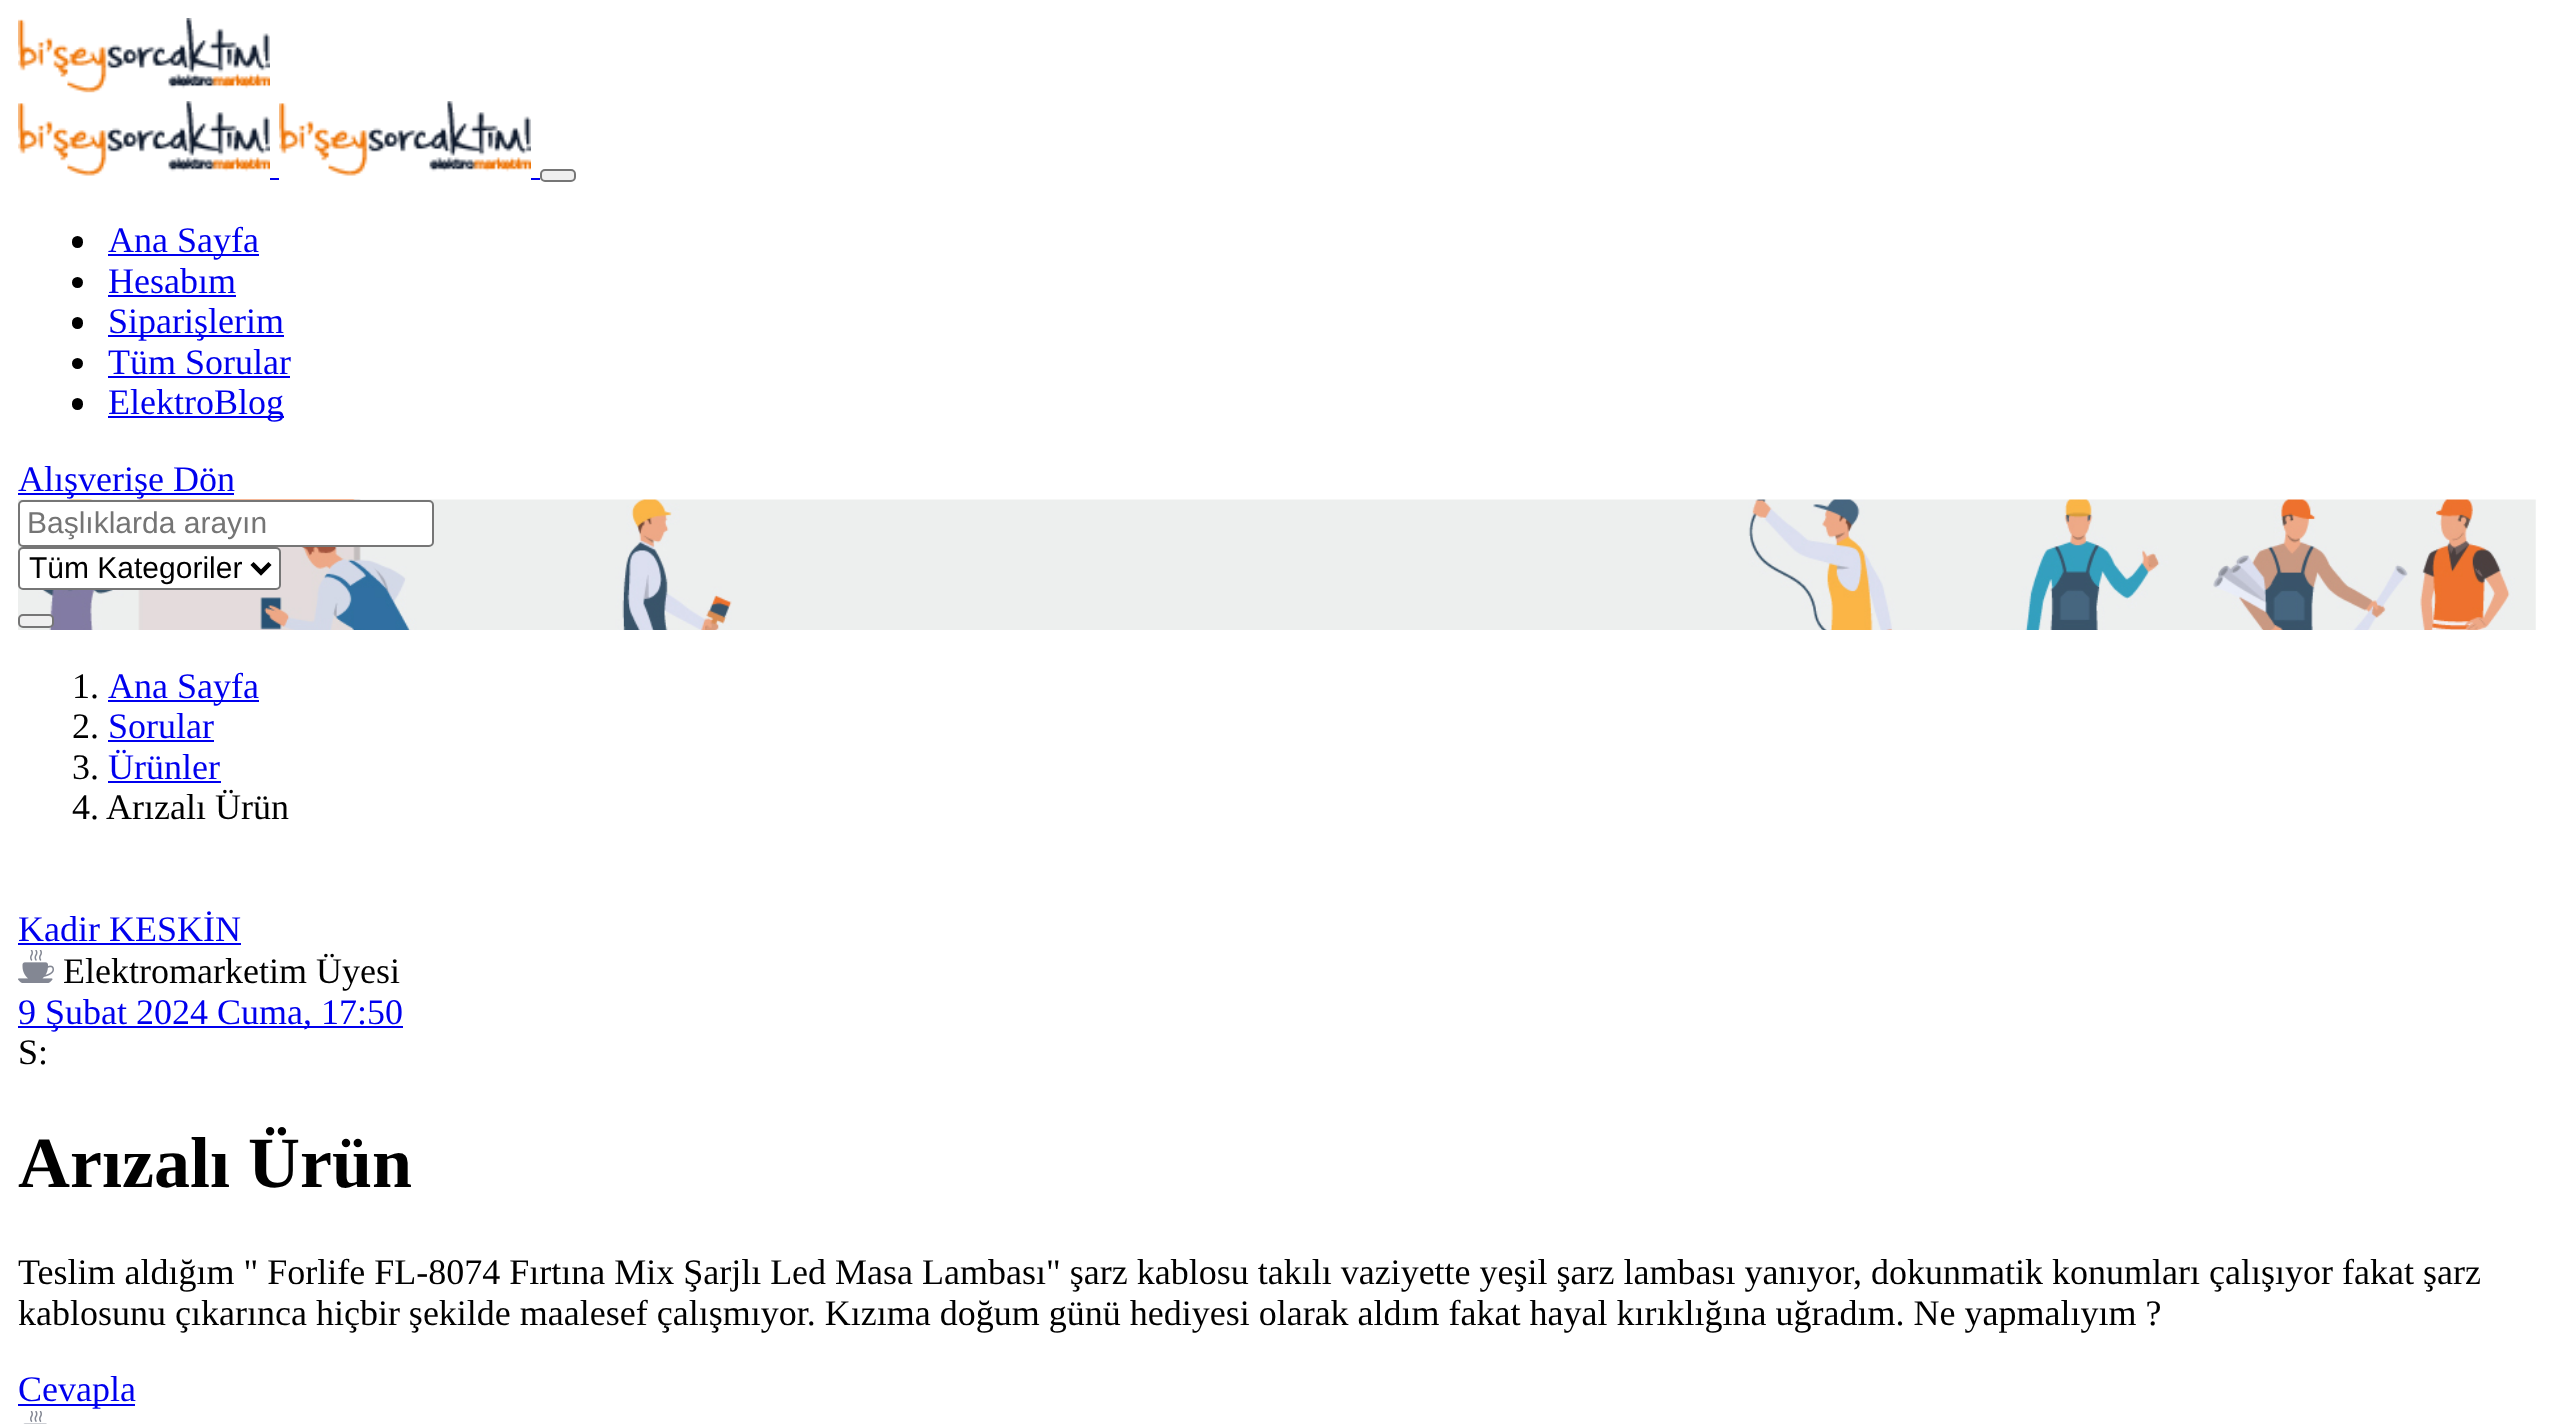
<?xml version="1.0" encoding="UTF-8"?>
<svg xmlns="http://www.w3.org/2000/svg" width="2553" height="1424">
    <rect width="100%" height="100%" fill="#FFFFFF"/>
    <image x="18" y="18" width="252" height="75" href="img_01.png"/>
    <image x="18" y="101" width="252" height="75" href="img_02.png"/>
    <rect x="270" y="178" width="9" height="2" fill="#0000EE"/>
    <image x="279" y="101" width="252" height="75" href="img_03.png"/>
    <rect x="531" y="178" width="9" height="2" fill="#0000EE"/>
    <rect x="541" y="170" width="34" height="11" rx="4" fill="#EFEFEF" stroke="#767676" stroke-width="2"/>
    <rect x="72" y="236" width="11" height="12" rx="5.5" fill="#000000"/>
    <rect x="108" y="254" width="151" height="2" fill="#0000EE"/>
    <text x="108" y="252" font-family="Liberation Serif" font-size="36" fill="#0000EE">Ana Sayfa</text>
    <circle cx="77.5" cy="282.5" r="5.5" fill="#000000"/>
    <text x="108" y="293" font-family="Liberation Serif" font-size="36" fill="#0000EE">Hesabım</text>
    <rect x="108" y="295" width="128" height="2" fill="#0000EE"/>
    <rect x="72" y="317" width="11" height="12" rx="5.5" fill="#000000"/>
    <rect x="108" y="335" width="176" height="2" fill="#0000EE"/>
    <text x="108" y="333" font-family="Liberation Serif" font-size="36" fill="#0000EE">Siparişlerim</text>
    <circle cx="77.5" cy="363.5" r="5.5" fill="#000000"/>
    <text x="108" y="374" font-family="Liberation Serif" font-size="36" fill="#0000EE">Tüm Sorular</text>
    <rect x="108" y="376" width="182" height="2" fill="#0000EE"/>
    <rect x="72" y="398" width="11" height="12" rx="5.5" fill="#000000"/>
    <rect x="108" y="416" width="176" height="2" fill="#0000EE"/>
    <text x="108" y="414" font-family="Liberation Serif" font-size="36" fill="#0000EE">ElektroBlog</text>
    <rect x="18" y="493" width="216" height="2" fill="#0000EE"/>
    <text x="18" y="491" font-family="Liberation Serif" font-size="36" fill="#0000EE">Alışverişe Dön</text>
    <image x="18" y="499" width="2518" height="131" href="img_04.png"/>
    <rect x="19" y="501" width="414" height="45" rx="4" fill="#FFFFFF" stroke="#767676" stroke-width="2"/>
    <text x="27" y="533" font-family="Liberation Sans" font-size="30" fill="#757575">Başlıklarda arayın</text>
    <rect x="19" y="548" width="261" height="41" rx="4" fill="#FFFFFF" stroke="#767676" stroke-width="2"/>
    <path d="M 252 563.5 L 261 572.5 L 270 563.5" fill="none" stroke="#000000" stroke-width="4.5"/>
    <text x="29" y="578" font-family="Liberation Sans" font-size="30" fill="#000000">Tüm Kategoriler</text>
    <rect x="19" y="615" width="34" height="12" rx="4" fill="#EFEFEF" stroke="#767676" stroke-width="2"/>
    <text x="72" y="698" font-family="Liberation Serif" font-size="36" fill="#000000">1.</text>
    <rect x="108" y="700" width="151" height="2" fill="#0000EE"/>
    <text x="108" y="698" font-family="Liberation Serif" font-size="36" fill="#0000EE">Ana Sayfa</text>
    <text x="72" y="738" font-family="Liberation Serif" font-size="36" fill="#000000">2.</text>
    <text x="108" y="738" font-family="Liberation Serif" font-size="36" fill="#0000EE">Sorular</text>
    <rect x="108" y="740" width="106" height="2" fill="#0000EE"/>
    <text x="72" y="779" font-family="Liberation Serif" font-size="36" fill="#000000">3.</text>
    <text x="108" y="779" font-family="Liberation Serif" font-size="36" fill="#0000EE">Ürünler</text>
    <rect x="108" y="781" width="113" height="2" fill="#0000EE"/>
    <text x="72" y="819" font-family="Liberation Serif" font-size="36" fill="#000000">4. Arızalı Ürün</text>
    <text x="18" y="941" font-family="Liberation Serif" font-size="36" fill="#0000EE">Kadir KESKİN</text>
    <rect x="18" y="943" width="223" height="2" fill="#0000EE"/>
    <image x="18" y="950" width="36" height="33" href="img_05.png"/>
    <text x="63" y="983" font-family="Liberation Serif" font-size="36" fill="#000000">Elektromarketim Üyesi</text>
    <rect x="18" y="1026" width="385" height="2" fill="#0000EE"/>
    <text x="18" y="1024" font-family="Liberation Serif" font-size="36" fill="#0000EE">9 Şubat 2024 Cuma, 17:50</text>
    <text x="18" y="1064" font-family="Liberation Serif" font-size="36" fill="#000000">S:</text>
    <text x="18" y="1187" font-family="Liberation Serif" font-size="72" font-weight="700" fill="#000000">Arızalı Ürün</text>
    <text font-family="Liberation Serif" font-size="36" fill="#000000">
        <tspan x="18" y="1284">Teslim aldığım " Forlife FL-8074 Fırtına Mix Şarjlı Led Masa Lambası" şarz kablosu takılı vaziyette yeşil şarz lambası yanıyor, dokunmatik konumları çalışıyor fakat şarz</tspan>
        <tspan x="18" y="1325">kablosunu çıkarınca hiçbir şekilde maalesef çalışmıyor. Kızıma doğum günü hediyesi olarak aldım fakat hayal kırıklığına uğradım. Ne yapmalıyım ?</tspan>
    </text>
    <rect x="18" y="1404" width="117" height="2" fill="#0000EE"/>
    <text x="18" y="1401" font-family="Liberation Serif" font-size="36" fill="#0000EE">Cevapla</text>
    <image x="23" y="1411" width="24" height="13" href="img_06.png"/>
</svg>
